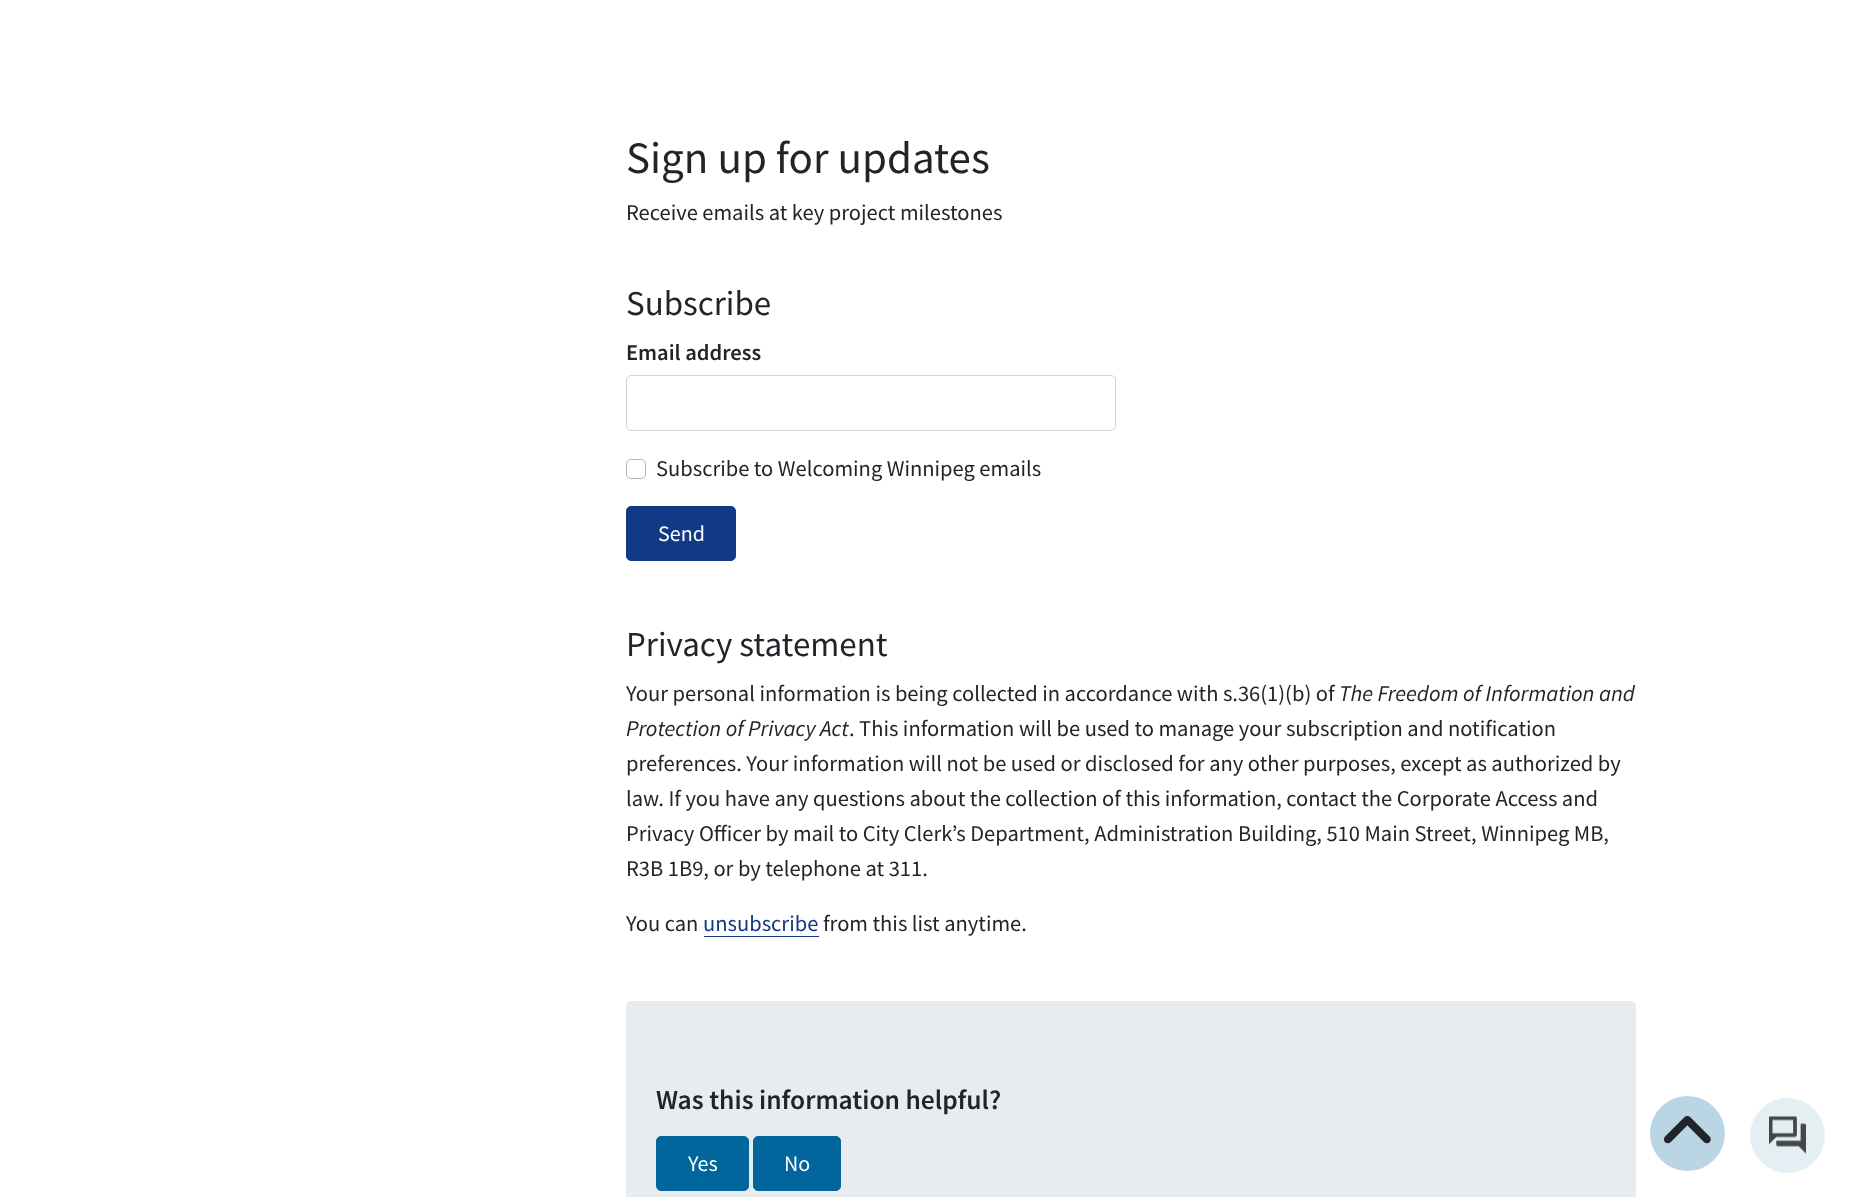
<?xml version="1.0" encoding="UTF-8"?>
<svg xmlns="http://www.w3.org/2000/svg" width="1862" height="1197">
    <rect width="100%" height="100%" fill="#FFFFFF"/>
    <text x="626" y="173" font-family="Source Sans Pro" font-size="45" fill="#212529">Sign up for updates</text>
    <text x="626" y="220" font-family="Source Sans Pro" font-size="22.5" fill="#212529">Receive emails at key project milestones</text>
    <text x="626" y="315" font-family="Source Sans Pro" font-size="35" fill="#212529">Subscribe</text>
    <text x="626" y="360" font-family="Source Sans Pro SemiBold" font-size="22.5" font-weight="600" fill="#212529">Email address</text>
    <rect x="626.5" y="375.5" width="489" height="55" rx="4.5" fill="none" stroke="#CED4DA"/>
    <rect x="626.5" y="459.5" width="19" height="19" rx="4.5" fill="none" stroke="#ADB5BD"/>
    <text x="656" y="476" font-family="Source Sans Pro" font-size="22.5" fill="#212529">Subscribe to Welcoming Winnipeg emails</text>
    <rect x="626.5" y="506.5" width="109" height="54" rx="4.5" fill="#123985" stroke="#123985"/>
    <text x="658" y="541" font-family="Source Sans Pro" font-size="22" fill="#FFFFFF">Send</text>
    <text x="626" y="656" font-family="Source Sans Pro" font-size="35" fill="#212529">Privacy statement</text>
    <text x="626" y="701" font-family="Source Sans Pro" font-size="22.5" fill="#212529">Your personal information is being collected in accordance with s.36(1)(b) of</text>
    <text x="1339" y="701" font-family="Source Sans Pro" font-size="22.5" font-style="italic" fill="#212529">The Freedom of Information and</text>
    <text x="626" y="736" font-family="Source Sans Pro" font-size="22.5" font-style="italic" fill="#212529">Protection of Privacy Act</text>
    <text x="849" y="736" font-family="Source Sans Pro" font-size="22.5" fill="#212529">. This information will be used to manage your subscription and notification</text>
    <text font-family="Source Sans Pro" font-size="22.5" fill="#212529">
        <tspan x="626" y="771">preferences. Your information will not be used or disclosed for any other purposes, except as authorized by</tspan>
        <tspan x="626" y="806">law. If you have any questions about the collection of this information, contact the Corporate Access and</tspan>
        <tspan x="626" y="841">Privacy Officer by mail to City Clerk’s Department, Administration Building, 510 Main Street, Winnipeg MB,</tspan>
        <tspan x="626" y="876">R3B 1B9, or by telephone at 311.</tspan>
    </text>
    <text x="626" y="931" font-family="Source Sans Pro" font-size="22.5" fill="#212529">You can</text>
    <text x="703" y="931" font-family="Source Sans Pro" font-size="22.5" fill="#123985">unsubscribe</text>
    <rect x="704" y="936" width="115" height="1" fill="#123985"/>
    <text x="823" y="931" font-family="Source Sans Pro" font-size="22.5" fill="#212529">from this list anytime.</text>
    <rect x="626" y="1001" width="1010" height="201" rx="5" fill="#E9ECEF"/>
    <text x="656" y="1109" font-family="Source Sans Pro SemiBold" font-size="27.5" font-weight="600" fill="#212529">Was this information helpful?</text>
    <rect x="656.5" y="1136.5" width="92" height="54" rx="4.5" fill="#00669B" stroke="#00669B"/>
    <text x="688" y="1171" font-family="Source Sans Pro" font-size="22" fill="#FFFFFF">Yes</text>
    <rect x="753.5" y="1136.5" width="87" height="54" rx="4.5" fill="#00669B" stroke="#00669B"/>
    <text x="784" y="1171" font-family="Source Sans Pro" font-size="22" fill="#FFFFFF">No</text>
    <circle cx="1687.5" cy="1133.5" r="37.5" fill="#BAD6E4"/>
    <image x="1663" y="1116" width="48" height="28" href="img_01.png"/>
    <circle cx="1787.5" cy="1135.5" r="37.5" fill="#E4EFF4"/>
    <image x="1769" y="1116" width="37" height="38" href="img_02.png"/>
</svg>
